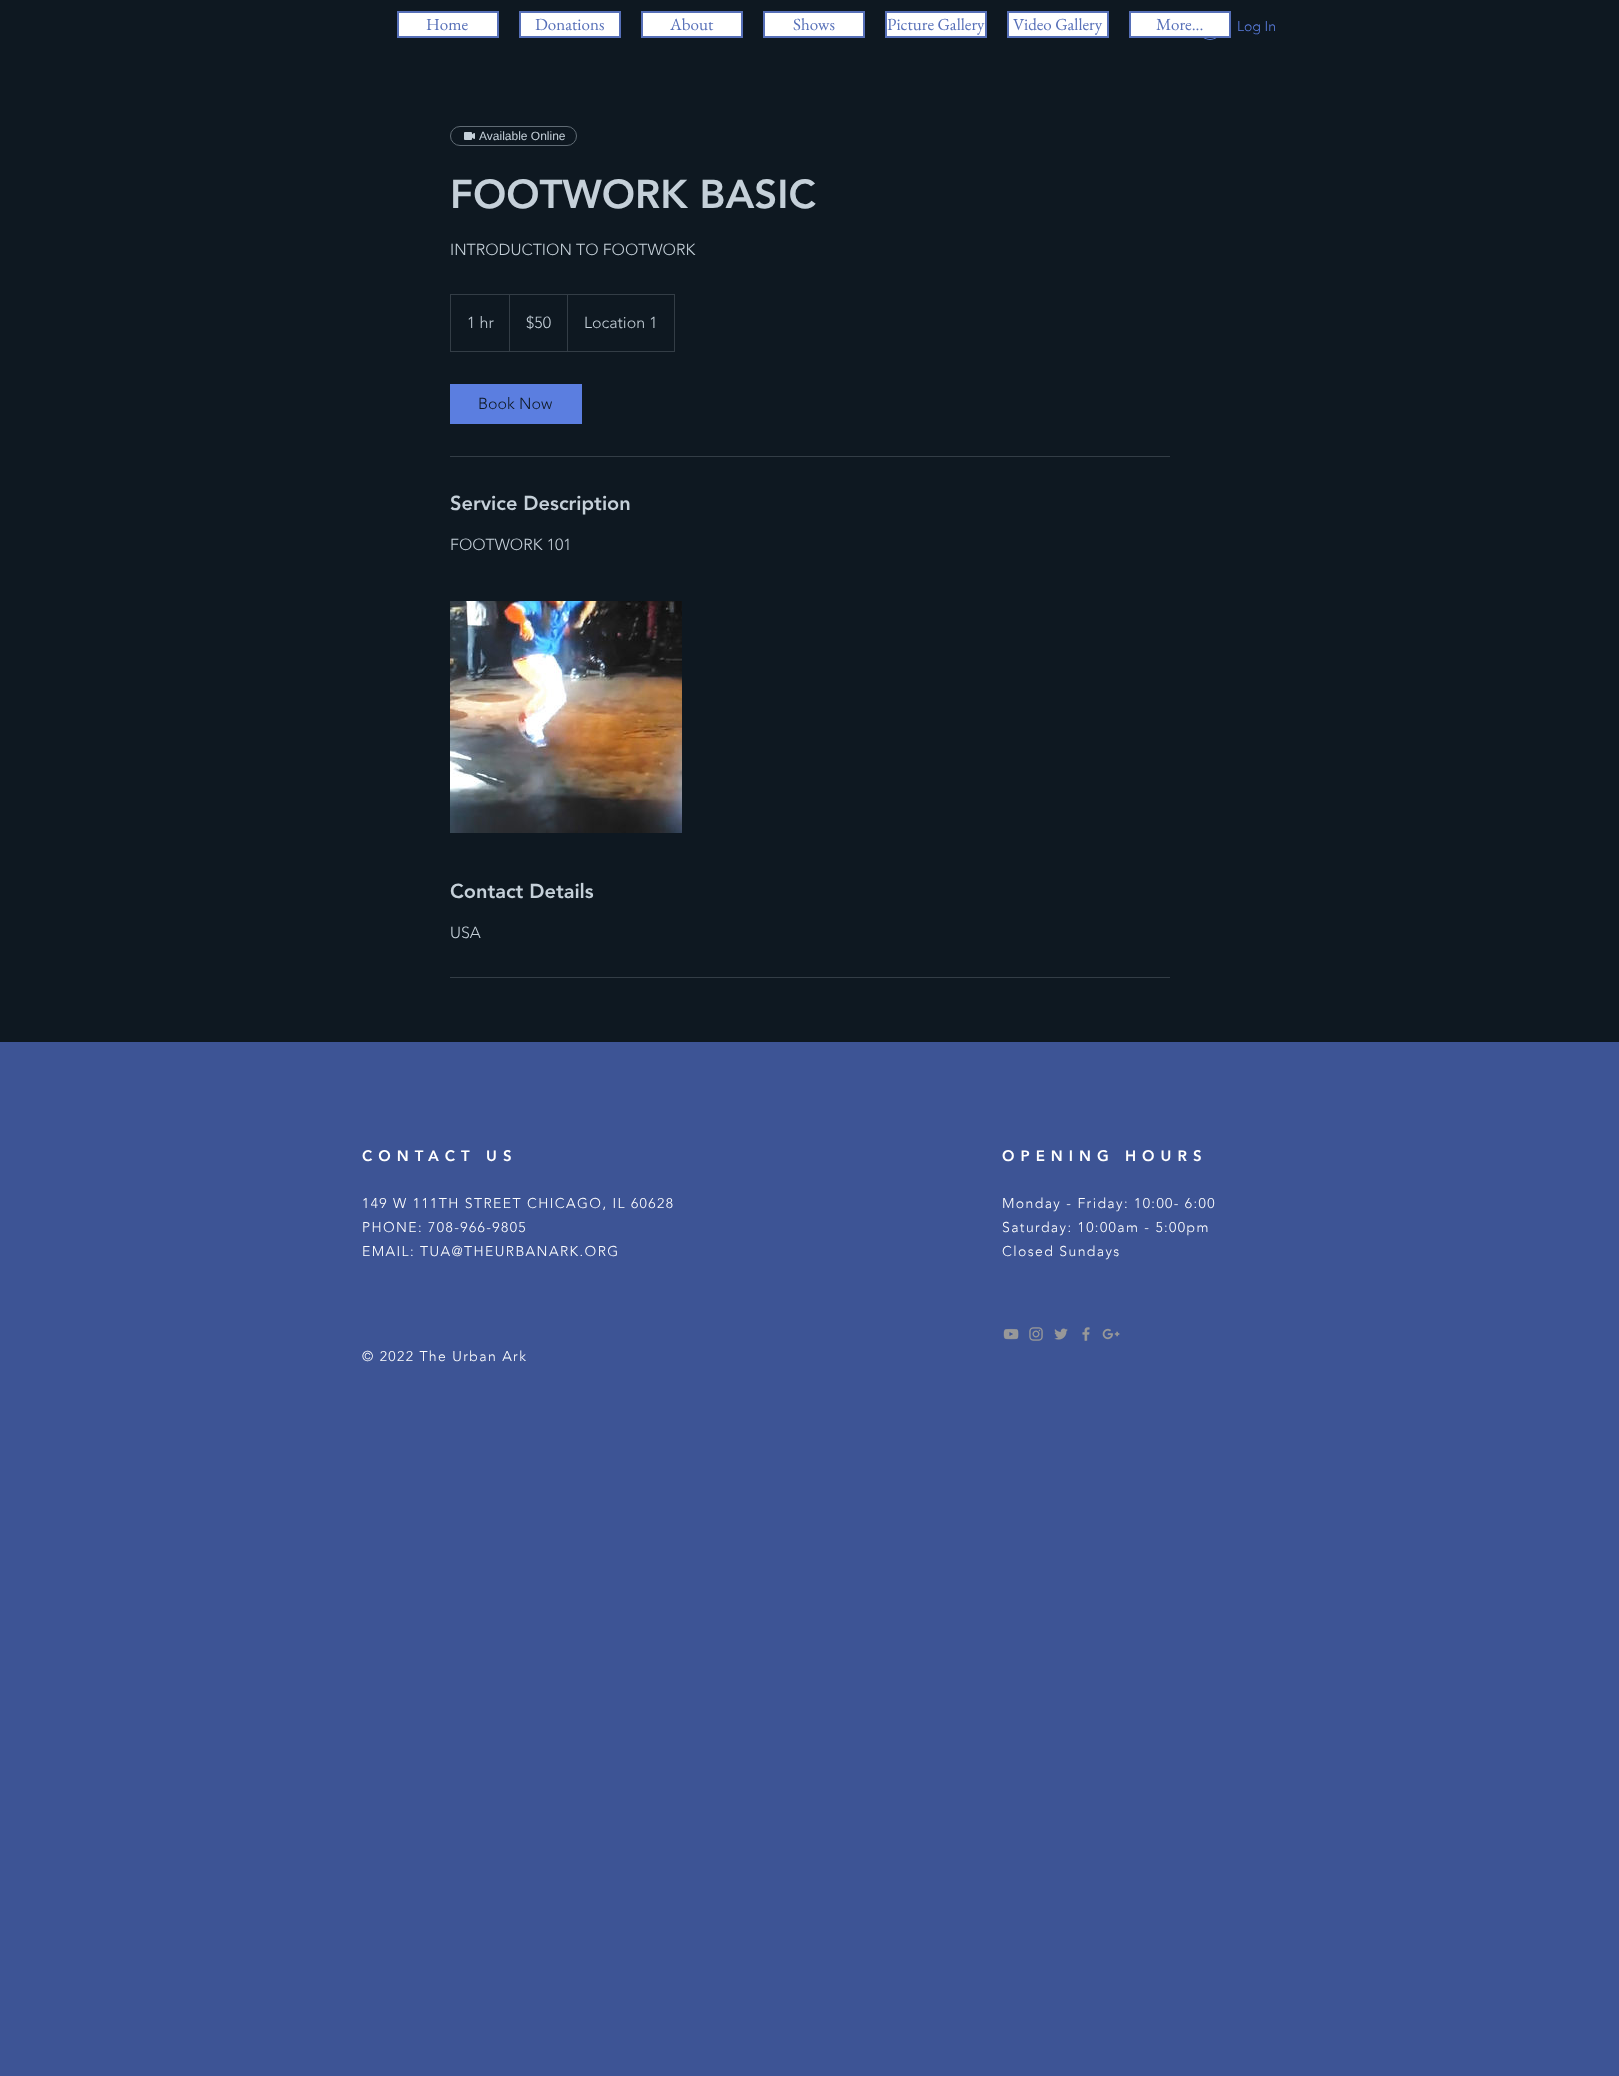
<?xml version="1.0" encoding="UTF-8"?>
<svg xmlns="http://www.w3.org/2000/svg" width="1619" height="2076">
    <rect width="100%" height="100%" fill="#3D5495"/>
    <rect x="0" y="0" width="1619" height="1042" fill="#0E1821"/>
    <rect x="398" y="12" width="100" height="25" fill="#FFFFFF" stroke="#566FB8" stroke-width="2"/>
    <text x="426" y="30" font-family="EB Garamond" font-size="17" fill="#566FB8">Home</text>
    <rect x="520" y="12" width="100" height="25" fill="#FFFFFF" stroke="#566FB8" stroke-width="2"/>
    <text x="535" y="30" font-family="EB Garamond" font-size="17" fill="#566FB8">Donations</text>
    <rect x="642" y="12" width="100" height="25" fill="#FFFFFF" stroke="#566FB8" stroke-width="2"/>
    <text x="670" y="30" font-family="EB Garamond" font-size="17" fill="#566FB8">About</text>
    <rect x="764" y="12" width="100" height="25" fill="#FFFFFF" stroke="#566FB8" stroke-width="2"/>
    <text x="793" y="30" font-family="EB Garamond" font-size="17" fill="#566FB8">Shows</text>
    <rect x="886" y="12" width="100" height="25" fill="#FFFFFF" stroke="#566FB8" stroke-width="2"/>
    <text x="887" y="30" font-family="EB Garamond" font-size="17" fill="#566FB8">Picture Gallery</text>
    <rect x="1008" y="12" width="100" height="25" fill="#FFFFFF" stroke="#566FB8" stroke-width="2"/>
    <text x="1013" y="30" font-family="EB Garamond" font-size="17" fill="#566FB8">Video Gallery</text>
    <rect x="1130" y="12" width="100" height="25" fill="#FFFFFF" stroke="#566FB8" stroke-width="2"/>
    <text x="1156" y="30" font-family="EB Garamond" font-size="17" fill="#566FB8">More...</text>
    <text x="1237" y="31" font-family="'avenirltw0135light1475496'" font-size="14" font-weight="300" fill="#5B7EE0">Log In</text>
    <image x="1203" y="38" width="14" height="2" href="img_01.png"/>
    <rect x="450.5" y="126.5" width="126" height="19" rx="9.5" fill="none" stroke="#606B74"/>
    <image x="464" y="132" width="11" height="8" href="img_02.png"/>
    <text x="479" y="140" font-family="Liberation Sans" font-size="12" fill="#C5D0D9">Available Online</text>
    <text x="450" y="208" font-family="'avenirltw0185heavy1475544'" font-size="40" font-weight="900" fill="#C5D0D9">FOOTWORK BASIC</text>
    <text x="450" y="255" font-family="'avenirltw0135light1475496'" font-size="16" font-weight="300" fill="#C5D0D9">INTRODUCTION TO FOOTWORK</text>
    <rect x="450.5" y="294.5" width="224" height="57" fill="none" stroke="#333D46"/>
    <text x="467" y="328" font-family="'avenirltw0135light1475496'" font-size="16" font-weight="300" fill="#C5D0D9">1 hr</text>
    <path d="M 509 351 V 294 L 510 295 V 351 Z" fill="#333D46"/>
    <text x="526" y="328" font-family="'avenirltw0135light1475496'" font-size="16" font-weight="300" fill="#C5D0D9">$50</text>
    <path d="M 567 351 V 294 L 568 295 V 351 Z" fill="#333D46"/>
    <text x="584" y="328" font-family="'avenirltw0135light1475496'" font-size="16" font-weight="300" fill="#C5D0D9">Location 1</text>
    <rect x="450" y="384" width="132" height="40" fill="#5B7EE0"/>
    <text x="478" y="409" font-family="'avenirltw0135light1475496'" font-size="16" font-weight="300" fill="#0E1821">Book Now</text>
    <rect x="450" y="456" width="720" height="1" fill="#333D46"/>
    <text x="450" y="510" font-family="'avenirltw0185heavy1475544'" font-size="20" font-weight="900" fill="#C5D0D9">Service Description</text>
    <text x="450" y="550" font-family="'avenirltw0135light1475496'" font-size="16" font-weight="300" fill="#C5D0D9">FOOTWORK 101</text>
    <image x="450" y="601" width="232" height="232" href="img_03.png"/>
    <text x="450" y="898" font-family="'avenirltw0185heavy1475544'" font-size="20" font-weight="900" fill="#C5D0D9">Contact Details</text>
    <text x="450" y="938" font-family="'avenirltw0135light1475496'" font-size="16" font-weight="300" fill="#C5D0D9">USA</text>
    <rect x="450" y="977" width="720" height="1" fill="#333D46"/>
    <text x="362" y="1161" font-family="'avenirltw0185heavy1475544'" font-size="15" font-weight="900" letter-spacing="6" fill="#FFFFFF">CONTACT US</text>
    <text x="1002" y="1161" font-family="'avenirltw0185heavy1475544'" font-size="15" font-weight="900" letter-spacing="6" fill="#FFFFFF">OPENING HOURS</text>
    <text font-family="'avenirltw0135light1475496'" font-size="14" font-weight="300" letter-spacing="1.4" fill="#FFFFFF">
        <tspan x="362" y="1208">149 W 111TH STREET CHICAGO, IL 60628</tspan>
        <tspan x="362" y="1232">PHONE: 708-966-9805</tspan>
        <tspan x="362" y="1256">EMAIL: TUA@THEURBANARK.ORG</tspan>
    </text>
    <text font-family="'avenirltw0135light1475496'" font-size="14" font-weight="300" letter-spacing="1.4" fill="#FFFFFF">
        <tspan x="1002" y="1208">Monday - Friday: 10:00- 6:00</tspan>
        <tspan x="1002" y="1232">Saturday: 10:00am - 5:00pm</tspan>
        <tspan x="1002" y="1256">Closed Sundays</tspan>
    </text>
    <image x="1003" y="1328" width="16" height="12" href="img_04.png"/>
    <image x="1029" y="1327" width="14" height="14" href="img_05.png"/>
    <image x="1054" y="1328" width="14" height="12" href="img_06.png"/>
    <image x="1082" y="1327" width="8" height="14" href="img_07.png"/>
    <image x="1102" y="1328" width="18" height="12" href="img_08.png"/>
    <text x="362" y="1361" font-family="'avenirltw0135light1475496'" font-size="14" font-weight="300" letter-spacing="1.4" fill="#FFFFFF">© 2022 The Urban Ark</text>
</svg>
